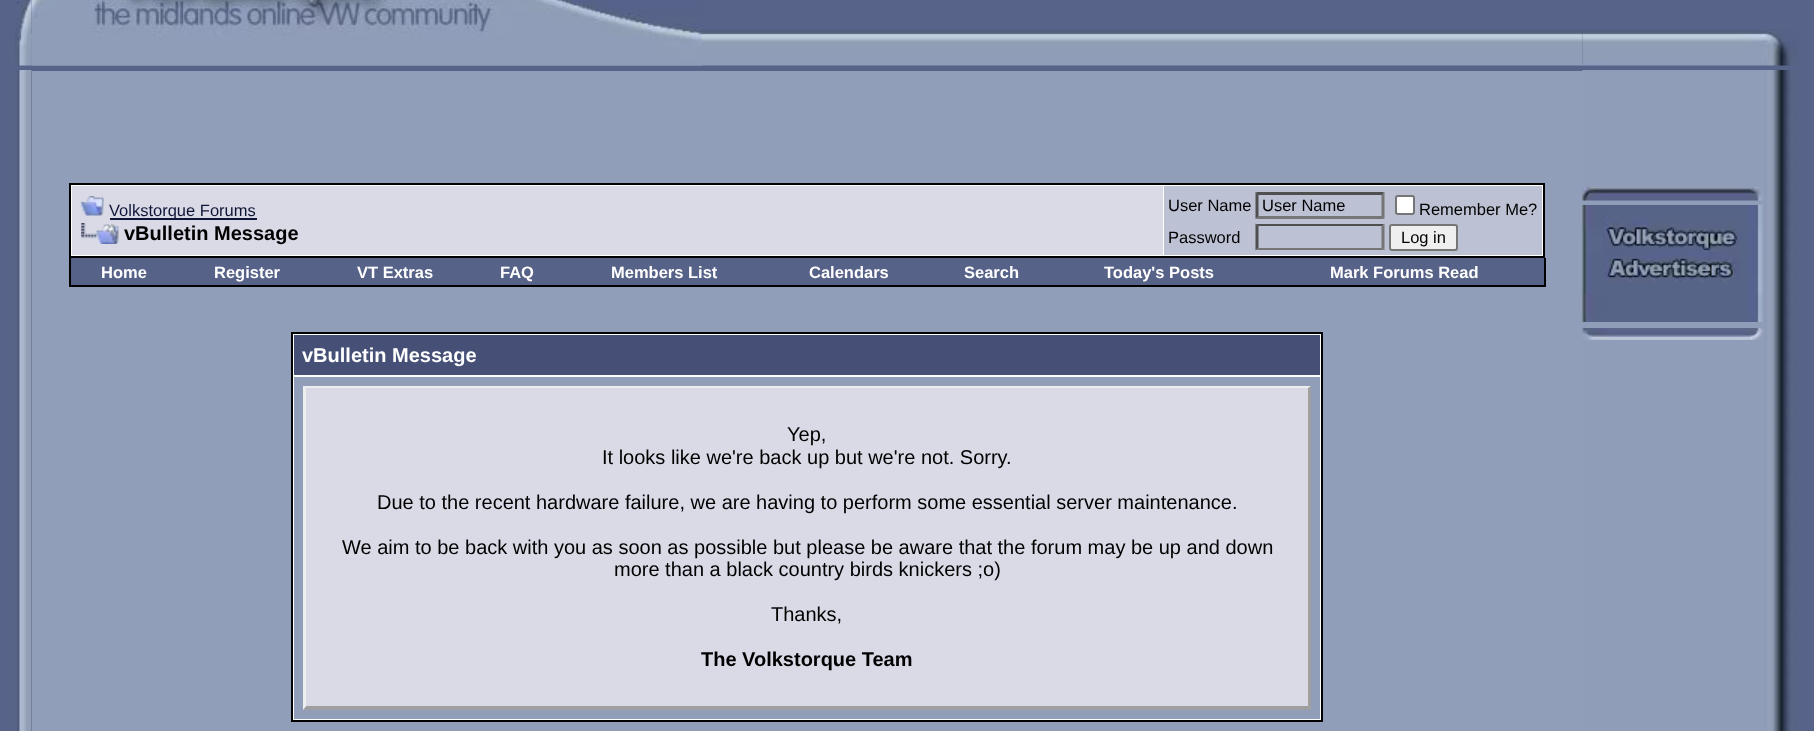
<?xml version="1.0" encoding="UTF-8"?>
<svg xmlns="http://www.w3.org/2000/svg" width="1814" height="731">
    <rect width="100%" height="100%" fill="#576389"/>
    <image x="31" y="29" width="671" height="37" href="img_02.png"/>
    <image x="15" y="0" width="17" height="66" href="img_01.png"/>
    <image x="31" y="0" width="671" height="66" href="img_03.png"/>
    <image x="702" y="29" width="881" height="37" href="img_04.png"/>
    <image x="1582" y="29" width="216" height="37" href="img_05.png"/>
    <image x="15" y="70" width="17" height="90" href="img_06.png"/>
    <rect x="32" y="71" width="1551" height="660" fill="#919EBA"/>
    <image x="1582" y="70" width="215" height="90" href="img_07.png"/>
    <image x="15" y="160" width="17" height="571" href="img_08.png"/>
    <rect x="70" y="184" width="1474" height="73" fill="#FFFFFF" stroke="#000000" stroke-width="2"/>
    <rect x="72" y="186" width="1091" height="69" fill="#D9DAE6"/>
    <image x="81" y="196" width="23" height="20" href="img_09.png"/>
    <rect x="110" y="218" width="147" height="2" fill="#0E1536"/>
    <text x="109" y="216" font-family="Liberation Sans" font-size="16.5" fill="#0E1536">Volkstorque Forums</text>
    <image x="81" y="223" width="38" height="21" href="img_10.png"/>
    <text x="124" y="240" font-family="Liberation Sans" font-size="20" font-weight="700" fill="#000000">vBulletin Message</text>
    <rect x="1164" y="186" width="378" height="69" fill="#BCC1D3"/>
    <text x="1168" y="211" font-family="Liberation Sans" font-size="16.5" fill="#000000">User Name</text>
    <path d="M 1256 192 H 1384 L 1382 195 H 1258 Z" fill="#4F4F4F"/>
    <path d="M 1384.5 192 V 219 L 1381.5 216 V 195 Z" fill="#767676"/>
    <path d="M 1384 219 H 1256 L 1258 216 H 1382 Z" fill="#767676"/>
    <path d="M 1255.5 219 V 192 L 1258.5 195 V 216 Z" fill="#4F4F4F"/>
    <text x="1262" y="211" font-family="Liberation Sans" font-size="16.5" fill="#000000">User Name</text>
    <rect x="1396" y="196" width="18" height="18" rx="2" fill="#FFFFFF" stroke="#767676" stroke-width="2"/>
    <text x="1419" y="215" font-family="Liberation Sans" font-size="16.5" fill="#000000">Remember Me?</text>
    <text x="1168" y="243" font-family="Liberation Sans" font-size="16.5" fill="#000000">Password</text>
    <path d="M 1256 224 H 1384 L 1382 226 H 1258 Z" fill="#4F4F4F"/>
    <path d="M 1384.5 223.5 V 250.5 L 1381.5 247.5 V 226.5 Z" fill="#767676"/>
    <path d="M 1384 250 H 1256 L 1258 248 H 1382 Z" fill="#767676"/>
    <path d="M 1255.5 250.5 V 223.5 L 1258.5 226.5 V 247.5 Z" fill="#4F4F4F"/>
    <rect x="1390" y="225" width="67" height="25" rx="2" fill="#EFEFEF" stroke="#767676" stroke-width="2"/>
    <text x="1401" y="243" font-family="Liberation Sans" font-size="16.5" fill="#000000">Log in</text>
    <rect x="1544" y="258" width="2" height="29" fill="#000000"/>
    <rect x="69" y="285" width="1476" height="2" fill="#000000"/>
    <rect x="69" y="258" width="2" height="29" fill="#000000"/>
    <rect x="71" y="258" width="1473" height="27" fill="#576288"/>
    <text x="101" y="278" font-family="Liberation Sans" font-size="16.5" font-weight="700" fill="#FFFFFF">Home</text>
    <text x="214" y="278" font-family="Liberation Sans" font-size="16.5" font-weight="700" fill="#FFFFFF">Register</text>
    <text x="357" y="278" font-family="Liberation Sans" font-size="16.5" font-weight="700" fill="#FFFFFF">VT Extras</text>
    <text x="500" y="278" font-family="Liberation Sans" font-size="16.5" font-weight="700" fill="#FFFFFF">FAQ</text>
    <text x="611" y="278" font-family="Liberation Sans" font-size="16.5" font-weight="700" fill="#FFFFFF">Members List</text>
    <text x="809" y="278" font-family="Liberation Sans" font-size="16.5" font-weight="700" fill="#FFFFFF">Calendars</text>
    <text x="964" y="278" font-family="Liberation Sans" font-size="16.5" font-weight="700" fill="#FFFFFF">Search</text>
    <text x="1104" y="278" font-family="Liberation Sans" font-size="16.5" font-weight="700" fill="#FFFFFF">Today's Posts</text>
    <text x="1330" y="278" font-family="Liberation Sans" font-size="16.5" font-weight="700" fill="#FFFFFF">Mark Forums Read</text>
    <rect x="292" y="333" width="1030" height="388" fill="#FFFFFF" stroke="#000000" stroke-width="2"/>
    <rect x="294" y="335" width="1026" height="40" fill="#465076"/>
    <text x="302" y="362" font-family="Liberation Sans" font-size="20" font-weight="700" fill="#FFFFFF">vBulletin Message</text>
    <rect x="294" y="377" width="1026" height="342" fill="#919EBA"/>
    <rect x="303" y="386" width="1008" height="324" fill="#D9DAE6"/>
    <path d="M 303 386 H 1311 L 1308 388 H 306 Z" fill="#EEEEEE"/>
    <path d="M 1311 386 V 710 L 1308 706 V 388 Z" fill="#9F9F9F"/>
    <path d="M 1311 710 H 303 L 306 706 H 1308 Z" fill="#9F9F9F"/>
    <path d="M 303 710 V 386 L 306 388 V 706 Z" fill="#EEEEEE"/>
    <text x="787" y="441" font-family="Liberation Sans" font-size="20" fill="#000000">Yep,</text>
    <text x="602" y="464" font-family="Liberation Sans" font-size="20" fill="#000000">It looks like we're back up but we're not. Sorry.</text>
    <text x="377" y="509" font-family="Liberation Sans" font-size="20" fill="#000000">Due to the recent hardware failure, we are having to perform some essential server maintenance.</text>
    <text x="342" y="554" font-family="Liberation Sans" font-size="20" fill="#000000">We aim to be back with you as soon as possible but please be aware that the forum may be up and down</text>
    <text x="614" y="576" font-family="Liberation Sans" font-size="20" fill="#000000">more than a black country birds knickers ;o)</text>
    <text x="771" y="621" font-family="Liberation Sans" font-size="20" fill="#000000">Thanks,</text>
    <text x="701" y="666" font-family="Liberation Sans" font-size="20" font-weight="700" fill="#000000">The Volkstorque Team</text>
    <image x="1583" y="160" width="214" height="571" href="img_11.png"/>
    <image x="1582" y="187" width="181" height="14" href="img_12.png"/>
    <image x="1582" y="205" width="181" height="117" href="img_13.png"/>
    <image x="1603" y="218" width="139" height="65" href="img_14.png"/>
    <image x="1582" y="328" width="181" height="12" href="img_15.png"/>
</svg>
